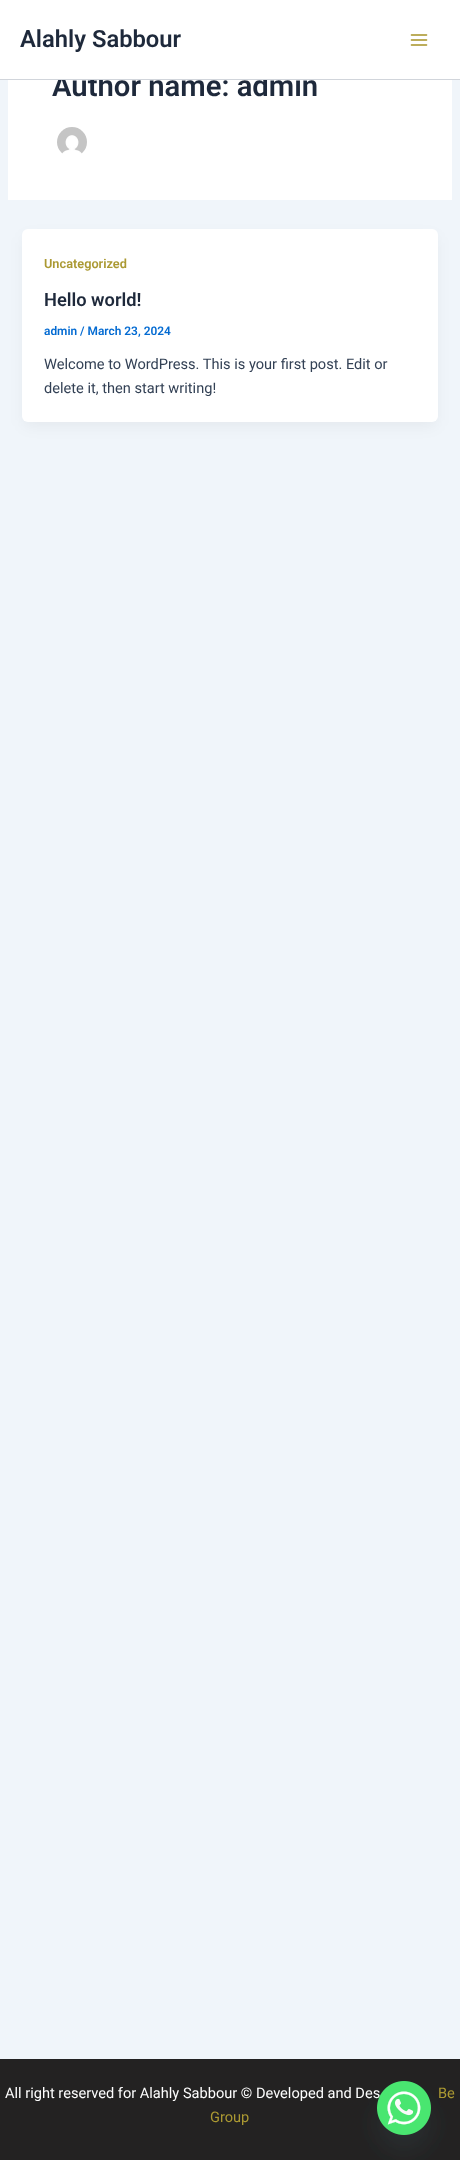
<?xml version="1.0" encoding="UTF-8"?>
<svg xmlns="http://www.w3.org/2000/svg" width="460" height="2160">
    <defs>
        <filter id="blur1" x="-50%" y="-200%" width="200%" height="500%"><feGaussianBlur stdDeviation="7.5"/></filter>
        <filter id="blur2" x="-50%" y="-200%" width="200%" height="500%"><feGaussianBlur stdDeviation="12"/></filter>
    </defs>
    <rect width="100%" height="100%" fill="#F0F5FA"/>
    <rect x="8" y="80" width="444" height="120" fill="#FFFFFF"/>
    <text x="52" y="96" font-family="Roboto" font-size="29.25" font-weight="600" fill="#1E293B">Author name: admin</text>
    <rect x="0" y="0" width="460" height="79" fill="#FFFFFF"/>
    <rect x="0" y="79" width="460" height="1" fill="#D1D5DB"/>
    <text x="20" y="47" font-family="Roboto" font-size="23.75" font-weight="600" fill="#1E293B">Alahly Sabbour</text>
    <image x="410" y="34" width="18" height="12" href="img_01.png"/>
    <image x="57" y="127" width="30" height="27" href="img_02.png"/>
    <rect x="24" y="237" width="412" height="189" rx="4" fill="#101828" fill-opacity="0.05" filter="url(#blur1)"/>
    <rect x="22" y="229" width="416" height="193" rx="6" fill="#FFFFFF"/>
    <text x="44" y="268" font-family="Roboto" font-size="12.75" font-weight="600" fill="#AB9932">Uncategorized</text>
    <text x="44" y="306" font-family="Roboto" font-size="18.25" font-weight="600" fill="#1E293B">Hello world!</text>
    <text x="44" y="335" font-family="Roboto" font-size="11.9" font-weight="600" fill="#046BD2">admin / March 23, 2024</text>
    <text font-family="Roboto" font-size="14.6" fill="#334155">
        <tspan x="44" y="369">Welcome to WordPress. This is your first post. Edit or</tspan>
        <tspan x="44" y="393">delete it, then start writing!</tspan>
    </text>
    <rect x="0" y="2059" width="460" height="101" fill="#232222"/>
    <text x="5" y="2098" font-family="Roboto" font-size="14.6" fill="#FEFEFE">All right reserved for Alahly Sabbour © Developed and Des</text>
    <text x="438" y="2098" font-family="Roboto" font-size="14.6" fill="#AB9932">Be</text>
    <text x="210" y="2122" font-family="Roboto" font-size="14.6" fill="#AB9932">Group</text>
    <rect x="377" y="2097" width="54" height="54" rx="27" fill="#49687E" fill-opacity="0.16" filter="url(#blur2)"/>
    <image x="377" y="2081" width="54" height="54" href="img_03.png"/>
</svg>
